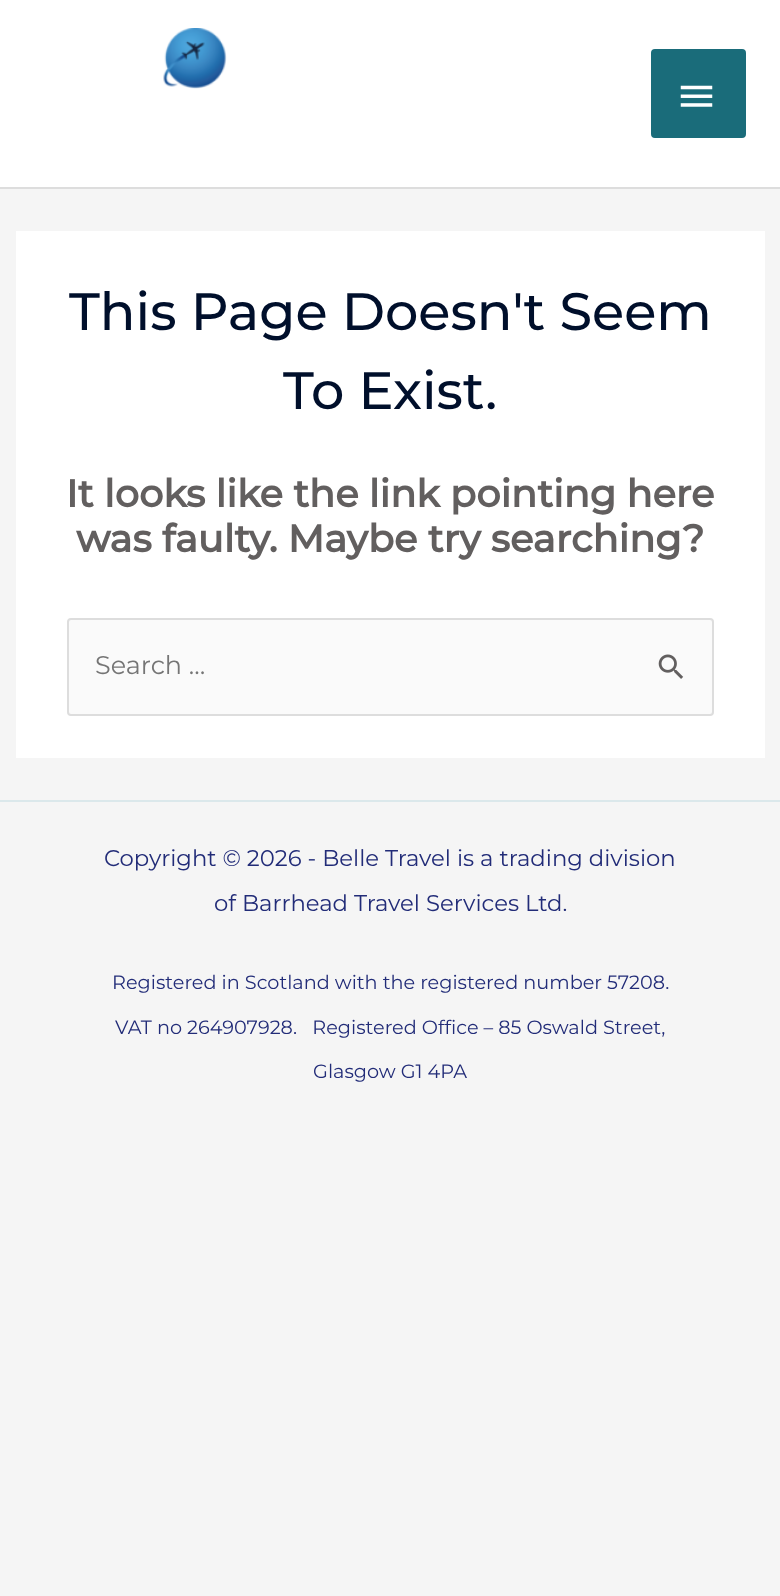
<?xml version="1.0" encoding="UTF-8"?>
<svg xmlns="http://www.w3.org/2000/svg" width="780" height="1596">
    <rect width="100%" height="100%" fill="#F5F5F5"/>
    <rect x="0" y="0" width="780" height="187" fill="#FFFFFF"/>
    <rect x="0" y="187" width="780" height="2" fill="#DDDDDD"/>
    <image x="163" y="28" width="64" height="61" href="img_01.png"/>
    <rect x="653" y="51" width="91" height="85" rx="2" fill="#1A6C7A" stroke="#1A6C7A" stroke-width="4"/>
    <image x="680" y="85" width="33" height="22" href="img_02.png"/>
    <rect x="16" y="231" width="749" height="527" fill="#FFFFFF"/>
    <text x="69" y="330" font-family="Montserrat" font-size="52.5" font-weight="500" fill="#000F2B">This Page Doesn't Seem</text>
    <text x="283" y="409" font-family="Montserrat" font-size="52.5" font-weight="500" fill="#000F2B">To Exist.</text>
    <text x="66" y="507" font-family="Montserrat" font-size="38.25" font-weight="700" fill="#625F5F">It looks like the link pointing here</text>
    <text x="76" y="552" font-family="Montserrat" font-size="38.25" font-weight="700" fill="#625F5F">was faulty. Maybe try searching?</text>
    <rect x="68" y="619" width="645" height="96" rx="3" fill="#FAFAFA" stroke="#DDDDDD" stroke-width="2"/>
    <text x="95" y="674" font-family="Montserrat" font-size="25.5" fill="#757575">Search …</text>
    <image x="658" y="654" width="26" height="25" href="img_03.png"/>
    <rect x="0" y="800" width="780" height="2" fill="#DBE8EB"/>
    <text x="104" y="866" font-family="Montserrat" font-size="22.75" fill="#222C78">Copyright © 2026 - Belle Travel is a trading division</text>
    <text x="214" y="911" font-family="Montserrat" font-size="22.75" fill="#222C78">of Barrhead Travel Services Ltd.</text>
    <text x="112" y="989" font-family="Montserrat" font-size="19.25" fill="#222C78">Registered in Scotland with the registered number 57208.</text>
    <text x="115" y="1034" font-family="Montserrat" font-size="19.25" fill="#222C78" xml:space="preserve">VAT no 264907928.   Registered Office – 85 Oswald Street,</text>
    <text x="313" y="1078" font-family="Montserrat" font-size="19.25" fill="#222C78">Glasgow G1 4PA</text>
</svg>
